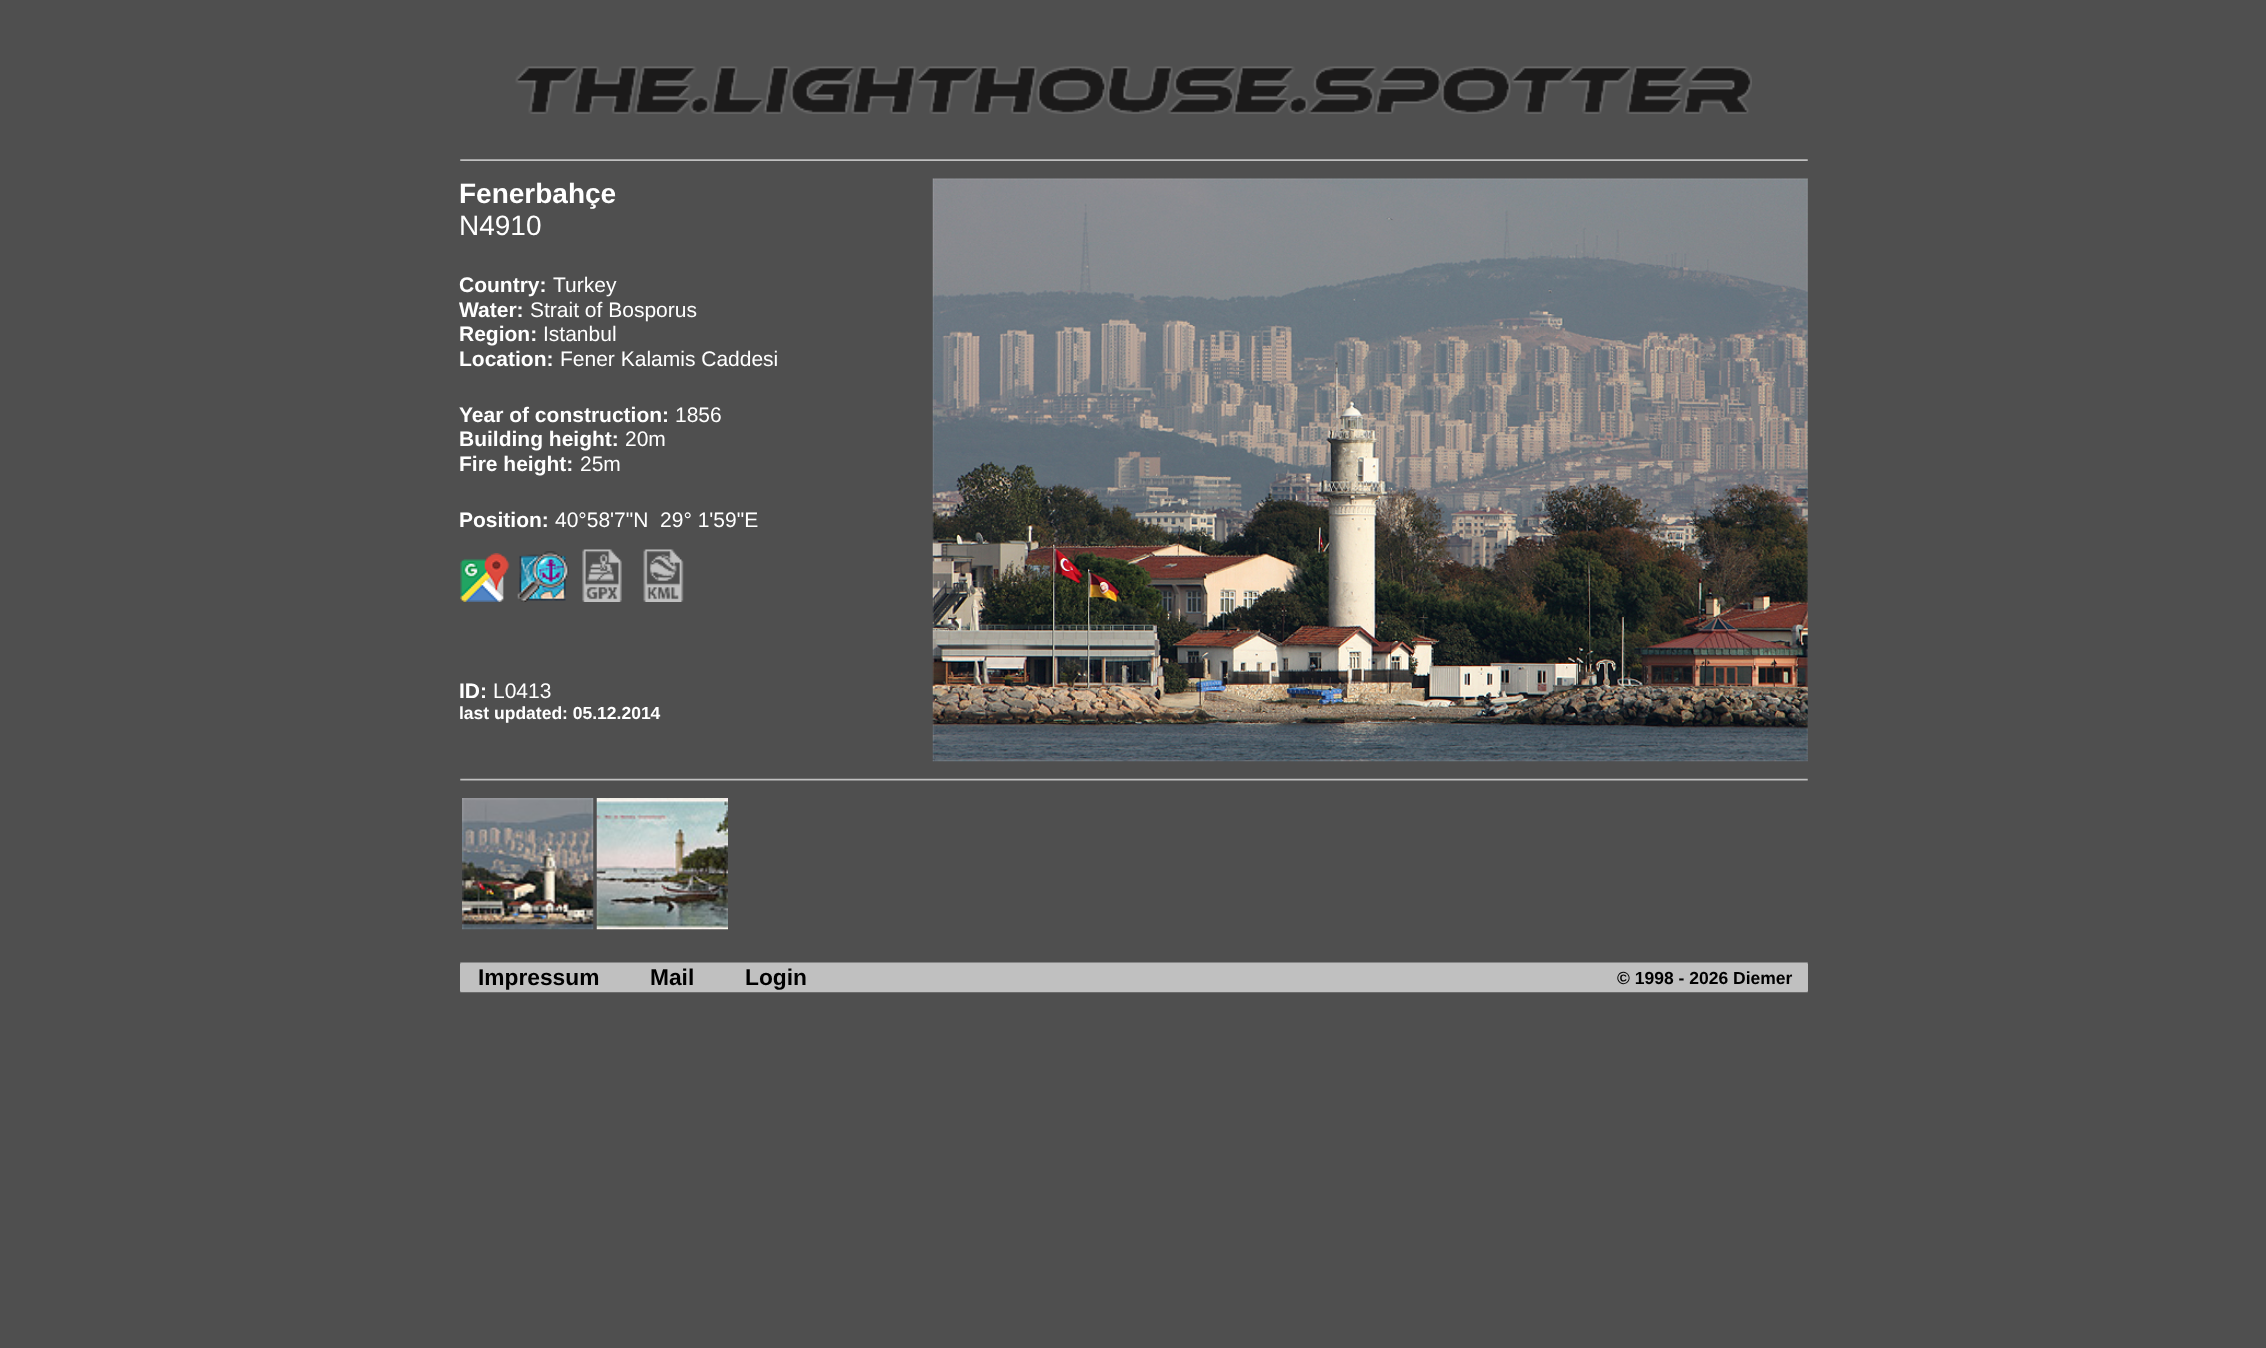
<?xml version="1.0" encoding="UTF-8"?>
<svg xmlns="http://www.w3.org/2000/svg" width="2266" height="1348">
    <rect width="100%" height="100%" fill="#4F4F4F"/>
    <image x="515" y="66" width="1237" height="48" href="img_01.png"/>
    <image x="460" y="159" width="1348" height="2" href="img_02.png"/>
    <text x="459" y="203" font-family="Liberation Sans" font-size="28" font-weight="700" fill="#FFFFFF">Fenerbahçe</text>
    <text x="459" y="235" font-family="Liberation Sans" font-size="28" fill="#FFFFFF">N4910</text>
    <text x="459" y="292" font-family="Liberation Sans" font-size="21" font-weight="700" fill="#FFFFFF">Country:</text>
    <text x="553" y="292" font-family="Liberation Sans" font-size="21" fill="#FFFFFF">Turkey</text>
    <text x="459" y="317" font-family="Liberation Sans" font-size="21" font-weight="700" fill="#FFFFFF">Water:</text>
    <text x="530" y="317" font-family="Liberation Sans" font-size="21" fill="#FFFFFF">Strait of Bosporus</text>
    <text x="459" y="341" font-family="Liberation Sans" font-size="21" font-weight="700" fill="#FFFFFF">Region:</text>
    <text x="543" y="341" font-family="Liberation Sans" font-size="21" fill="#FFFFFF">Istanbul</text>
    <text x="459" y="366" font-family="Liberation Sans" font-size="21" font-weight="700" fill="#FFFFFF">Location:</text>
    <text x="560" y="366" font-family="Liberation Sans" font-size="21" fill="#FFFFFF">Fener Kalamis Caddesi</text>
    <text x="459" y="422" font-family="Liberation Sans" font-size="21" font-weight="700" fill="#FFFFFF">Year of construction:</text>
    <text x="675" y="422" font-family="Liberation Sans" font-size="21" fill="#FFFFFF">1856</text>
    <text x="459" y="446" font-family="Liberation Sans" font-size="21" font-weight="700" fill="#FFFFFF">Building height:</text>
    <text x="625" y="446" font-family="Liberation Sans" font-size="21" fill="#FFFFFF">20m</text>
    <text x="459" y="471" font-family="Liberation Sans" font-size="21" font-weight="700" fill="#FFFFFF">Fire height:</text>
    <text x="580" y="471" font-family="Liberation Sans" font-size="21" fill="#FFFFFF">25m</text>
    <text x="459" y="527" font-family="Liberation Sans" font-size="21" font-weight="700" fill="#FFFFFF">Position:</text>
    <text x="555" y="527" font-family="Liberation Sans" font-size="21" fill="#FFFFFF" xml:space="preserve">40°58'7"N  29° 1'59"E</text>
    <image x="460" y="553" width="50" height="49" href="img_03.png"/>
    <image x="517" y="551" width="52" height="51" href="img_04.png"/>
    <image x="582" y="549" width="40" height="53" href="img_05.png"/>
    <image x="643" y="549" width="41" height="53" href="img_06.png"/>
    <text x="459" y="698" font-family="Liberation Sans" font-size="21" font-weight="700" fill="#FFFFFF">ID:</text>
    <text x="493" y="698" font-family="Liberation Sans" font-size="21" fill="#FFFFFF">L0413</text>
    <text x="459" y="719" font-family="Liberation Sans" font-size="17.5" font-weight="700" fill="#FFFFFF">last updated: 05.12.2014</text>
    <image x="932" y="178" width="876" height="584" href="img_07.png"/>
    <image x="460" y="778" width="1348" height="3" href="img_08.png"/>
    <image x="462" y="798" width="132" height="132" href="img_09.png"/>
    <image x="596" y="798" width="132" height="132" href="img_10.png"/>
    <image x="460" y="962" width="1348" height="2" href="img_11.png"/>
    <rect x="460" y="964" width="1348" height="27" fill="#C0C0C0"/>
    <text x="478" y="985" font-family="Liberation Sans" font-size="22.75" font-weight="700" fill="#000000">Impressum</text>
    <text x="650" y="985" font-family="Liberation Sans" font-size="22.75" font-weight="700" fill="#000000">Mail</text>
    <text x="745" y="985" font-family="Liberation Sans" font-size="22.75" font-weight="700" fill="#000000">Login</text>
    <text x="1617" y="984" font-family="Liberation Sans" font-size="17.5" font-weight="700" fill="#000000">© 1998 - 2026 Diemer</text>
    <image x="460" y="991" width="1348" height="2" href="img_12.png"/>
</svg>
